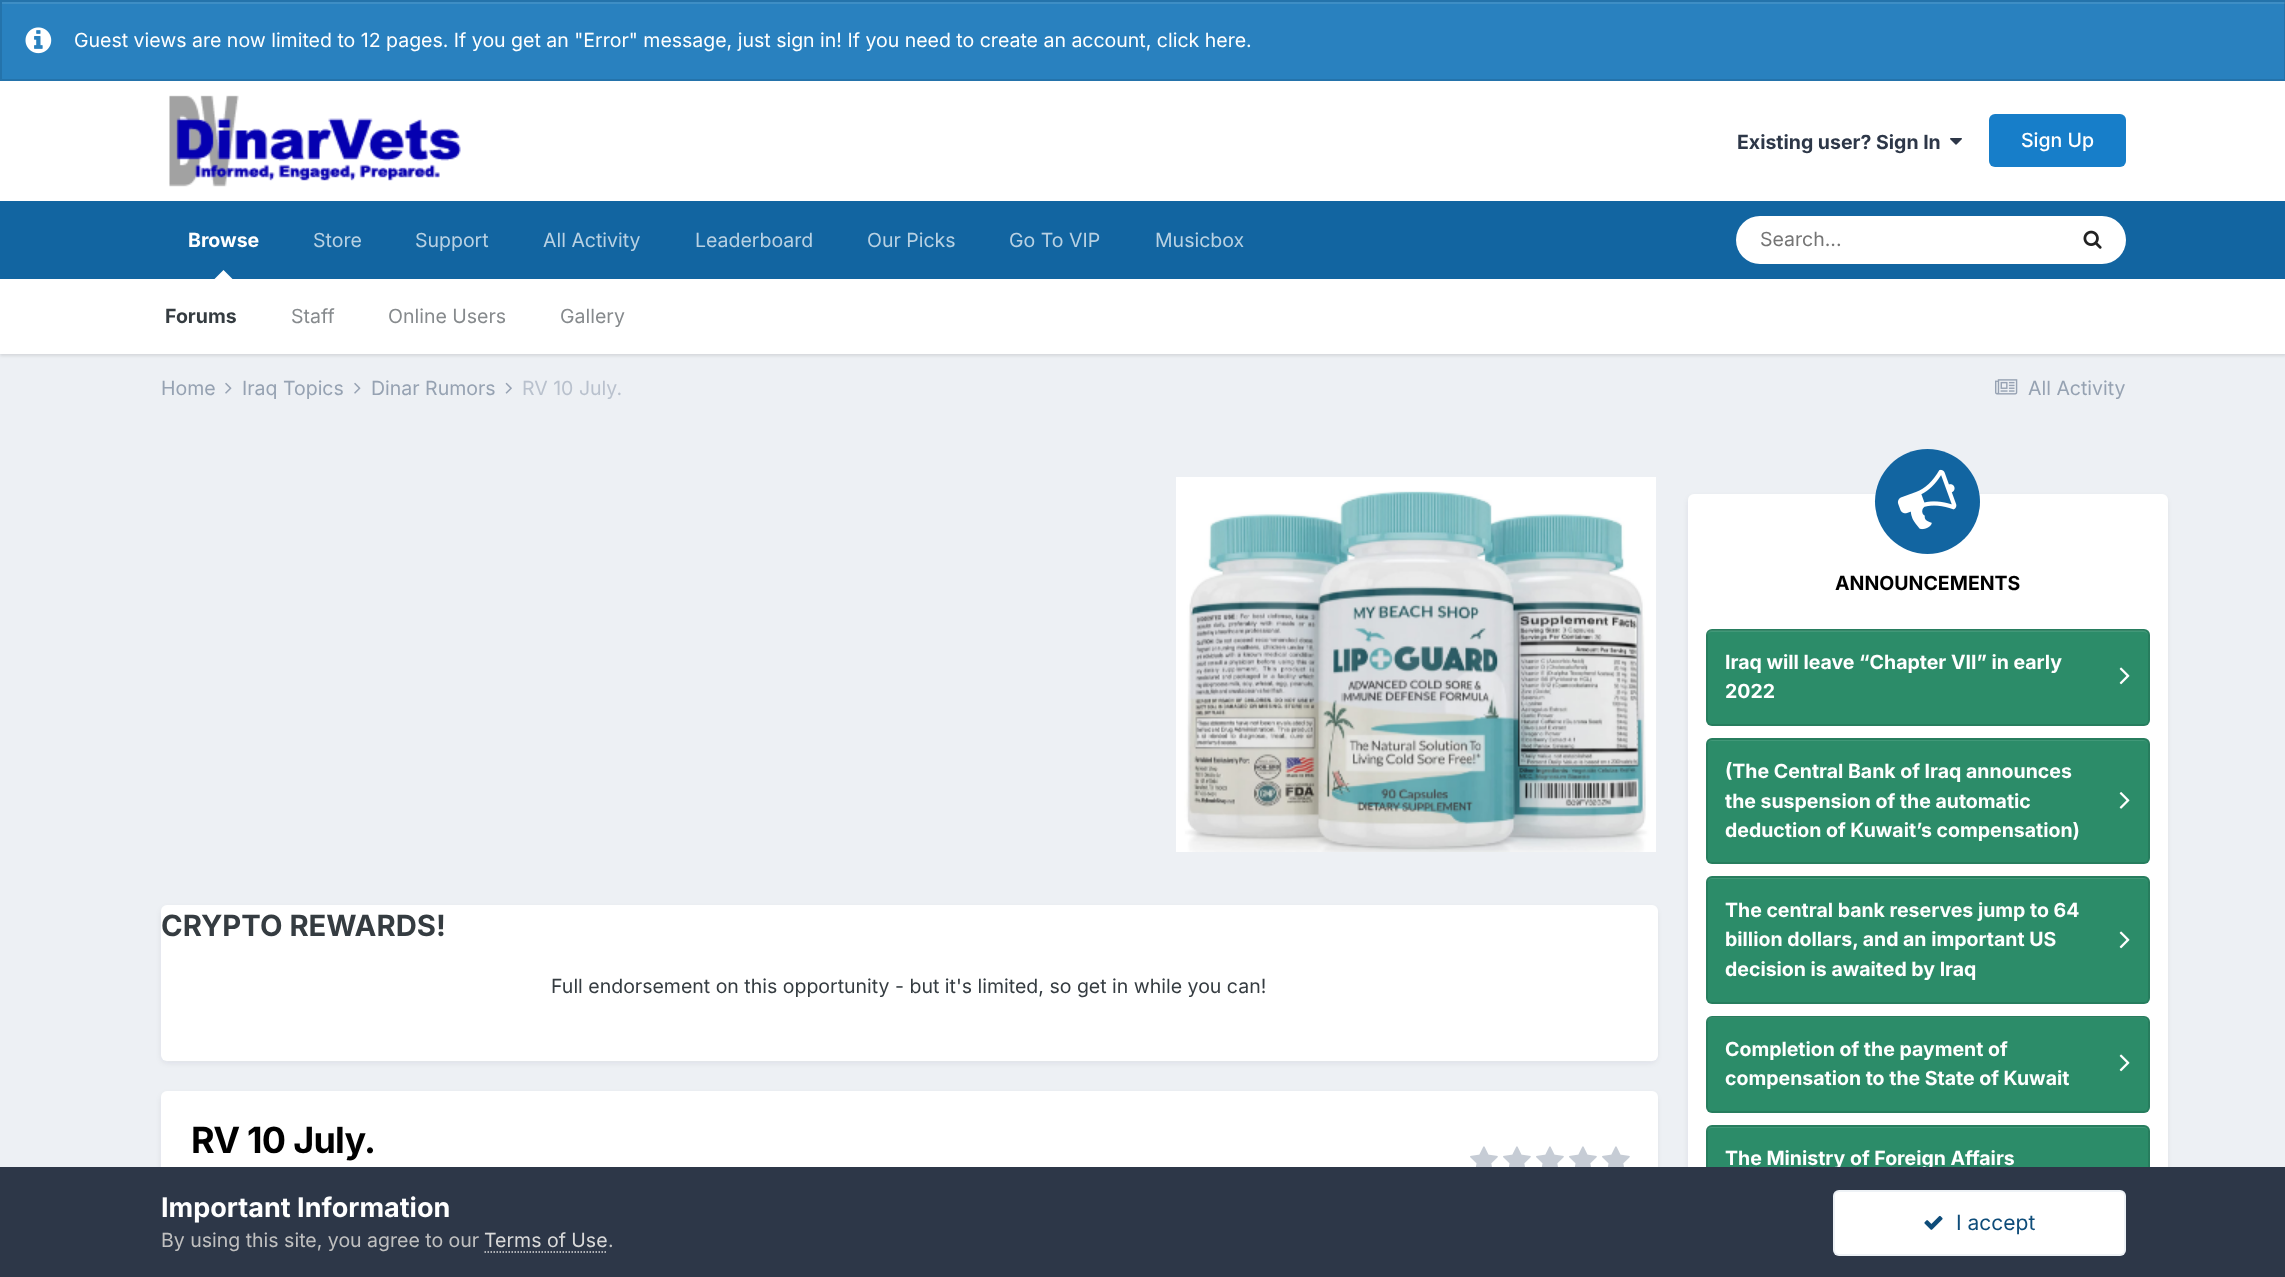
<?xml version="1.0" encoding="UTF-8"?>
<svg xmlns="http://www.w3.org/2000/svg" width="2285" height="1277">
    <defs>
        <filter id="blur1" x="-50%" y="-200%" width="200%" height="500%"><feGaussianBlur stdDeviation="1.5"/></filter>
        <filter id="blur2" x="-50%" y="-200%" width="200%" height="500%"><feGaussianBlur stdDeviation="3"/></filter>
    </defs>
    <rect width="100%" height="100%" fill="#EDF0F4"/>
    <rect x="0" y="0" width="2285" height="81" fill="#2981BF"/>
    <rect x="2" y="2" width="2283" height="2" fill="#3E8EC5"/>
    <rect x="1" y="1" width="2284" height="79" fill="none" stroke="#000000" stroke-opacity="0.1" stroke-width="2"/>
    <image x="25" y="27" width="27" height="27" href="img_01.png"/>
    <text x="74" y="47" font-family="Inter" font-size="19.5" fill="#FFFFFF">Guest views are now limited to 12 pages. If you get an "Error" message, just sign in! If you need to create an account, click here.</text>
    <rect x="0" y="81" width="2285" height="120" fill="#FFFFFF"/>
    <image x="169" y="95" width="292" height="92" href="img_02.png"/>
    <text x="1737" y="149" font-family="Inter" font-size="19.5" font-weight="700" fill="#2D3748">Existing user? Sign In</text>
    <image x="1950" y="138" width="12" height="7" href="img_03.png"/>
    <rect x="1989" y="114" width="137" height="53" rx="6" fill="#177EC9"/>
    <text x="2021" y="147" font-family="Inter" font-size="19.5" font-weight="500" fill="#FFFFFF">Sign Up</text>
    <rect x="0" y="201" width="2285" height="78" fill="#1265A1"/>
    <text x="188" y="247" font-family="Inter" font-size="19.5" font-weight="700" fill="#FFFFFF">Browse</text>
    <rect x="0" y="281" width="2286" height="75" fill="#000000" fill-opacity="0.1" filter="url(#blur1)"/>
    <path d="M 232.5 279 H 214.5 L 223.5 270 Z" fill="#FFFFFF"/>
    <rect x="0" y="279" width="2285" height="75" fill="#FFFFFF"/>
    <text x="165" y="323" font-family="Inter" font-size="19.5" font-weight="700" fill="#353C41">Forums</text>
    <text x="291" y="323" font-family="Inter" font-size="19.5" fill="#868A8D">Staff</text>
    <text x="388" y="323" font-family="Inter" font-size="19.5" fill="#868A8D">Online Users</text>
    <text x="560" y="323" font-family="Inter" font-size="19.5" fill="#868A8D">Gallery</text>
    <text x="313" y="247" font-family="Inter" font-size="19.5" fill="#B8D1E3">Store</text>
    <text x="415" y="247" font-family="Inter" font-size="19.5" fill="#B8D1E3">Support</text>
    <text x="543" y="247" font-family="Inter" font-size="19.5" fill="#B8D1E3">All Activity</text>
    <text x="695" y="247" font-family="Inter" font-size="19.5" fill="#B8D1E3">Leaderboard</text>
    <text x="867" y="247" font-family="Inter" font-size="19.5" fill="#B8D1E3">Our Picks</text>
    <text x="1009" y="247" font-family="Inter" font-size="19.5" fill="#B8D1E3">Go To VIP</text>
    <text x="1155" y="247" font-family="Inter" font-size="19.5" fill="#B8D1E3">Musicbox</text>
    <rect x="1736" y="216" width="390" height="48" rx="24" fill="#FFFFFF"/>
    <text x="1760" y="246" font-family="Inter" font-size="19.5" fill="#757575">Search...</text>
    <image x="2083" y="230" width="19" height="19" href="img_04.png"/>
    <text x="161" y="395" font-family="Inter" font-size="19.5" fill="#96A2B2">Home</text>
    <image x="225" y="382" width="7" height="12" href="img_05.png"/>
    <text x="242" y="395" font-family="Inter" font-size="19.5" fill="#96A2B2">Iraq Topics</text>
    <image x="354" y="382" width="7" height="12" href="img_05.png"/>
    <text x="371" y="395" font-family="Inter" font-size="19.5" fill="#96A2B2">Dinar Rumors</text>
    <image x="505" y="382" width="7" height="12" href="img_06.png"/>
    <text x="522" y="395" font-family="Inter" font-size="19.5" fill="#B9C1CD">RV 10 July.</text>
    <image x="1995" y="379" width="23" height="16" href="img_07.png"/>
    <text x="2028" y="395" font-family="Inter" font-size="19.5" fill="#96A2B2">All Activity</text>
    <image x="1176" y="477" width="480" height="375" href="img_08.png"/>
    <rect x="162" y="909" width="1494" height="153" rx="5" fill="#2D3748" fill-opacity="0.1" filter="url(#blur2)"/>
    <rect x="161" y="905" width="1497" height="156" rx="6" fill="#FFFFFF"/>
    <text x="161" y="936" font-family="Inter" font-size="29.25" font-weight="700" fill="#353C41">CRYPTO REWARDS!</text>
    <text x="551" y="993" font-family="Inter" font-size="19.5" fill="#353C41">Full endorsement on this opportunity - but it's limited, so get in while you can!</text>
    <rect x="162" y="1095" width="1494" height="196" rx="5" fill="#2D3748" fill-opacity="0.1" filter="url(#blur2)"/>
    <rect x="161" y="1091" width="1497" height="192" rx="6" fill="#FFFFFF"/>
    <text x="191" y="1153" font-family="Inter" font-size="36" font-weight="700" letter-spacing="-0.75" fill="#000000">RV 10 July.</text>
    <image x="1470" y="1146" width="28" height="21" href="img_09.png"/>
    <image x="1503" y="1146" width="28" height="21" href="img_09.png"/>
    <image x="1536" y="1146" width="28" height="21" href="img_09.png"/>
    <image x="1569" y="1146" width="28" height="21" href="img_09.png"/>
    <image x="1602" y="1146" width="28" height="21" href="img_09.png"/>
    <rect x="1689" y="498" width="477" height="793" rx="5" fill="#2D3748" fill-opacity="0.1" filter="url(#blur2)"/>
    <rect x="1688" y="494" width="480" height="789" rx="6" fill="#FFFFFF"/>
    <circle cx="1927.5" cy="501.5" r="52.5" fill="#1265A1"/>
    <image x="1897" y="469" width="60" height="61" href="img_10.png"/>
    <text x="1835" y="590" font-family="Inter" font-size="19.5" font-weight="700" fill="#000000">ANNOUNCEMENTS</text>
    <rect x="1706" y="629" width="444" height="97" rx="6" fill="#2C8C69"/>
    <path d="M 1712 632 H 2144 C 2146 632 2148 634 2148 636 C 2148 633 2146 630 2143 630 H 1712 C 1709 630 1707 633 1707 636 C 1707 634 1709 632 1712 632 Z" fill="#419878"/>
    <rect x="1707" y="630" width="442" height="95" rx="5" fill="none" stroke="#000000" stroke-opacity="0.1" stroke-width="2"/>
    <text x="1725" y="669" font-family="Inter" font-size="19.5" font-weight="700" fill="#FFFFFF">Iraq will leave “Chapter VII” in early</text>
    <image x="2119" y="667" width="11" height="18" href="img_11.png"/>
    <text x="1725" y="698" font-family="Inter" font-size="19.5" font-weight="700" fill="#FFFFFF">2022</text>
    <rect x="1706" y="738" width="444" height="126" rx="6" fill="#2C8C69"/>
    <path d="M 1712 741 H 2144 C 2146 741 2148 743 2148 746 C 2148 743 2146 740 2143 740 H 1712 C 1709 740 1707 743 1707 746 C 1707 743 1709 741 1712 741 Z" fill="#419878"/>
    <rect x="1707" y="739" width="442" height="124" rx="5" fill="none" stroke="#000000" stroke-opacity="0.1" stroke-width="2"/>
    <text font-family="Inter" font-size="19.5" font-weight="700" fill="#FFFFFF">
        <tspan x="1725" y="778">(The Central Bank of Iraq announces</tspan>
        <tspan x="1725" y="808">the suspension of the automatic</tspan>
    </text>
    <image x="2119" y="792" width="11" height="17" href="img_12.png"/>
    <text x="1725" y="837" font-family="Inter" font-size="19.5" font-weight="700" fill="#FFFFFF">deduction of Kuwait’s compensation)</text>
    <rect x="1706" y="876" width="444" height="128" rx="6" fill="#2C8C69"/>
    <path d="M 1712 879 H 2144 C 2146 879 2148 881 2148 884 C 2148 881 2146 878 2143 878 H 1712 C 1709 878 1707 881 1707 884 C 1707 881 1709 879 1712 879 Z" fill="#419878"/>
    <rect x="1707" y="877" width="442" height="126" rx="5" fill="none" stroke="#000000" stroke-opacity="0.1" stroke-width="2"/>
    <text font-family="Inter" font-size="19.5" font-weight="700" fill="#FFFFFF">
        <tspan x="1725" y="917">The central bank reserves jump to 64</tspan>
        <tspan x="1725" y="946">billion dollars, and an important US</tspan>
    </text>
    <image x="2119" y="931" width="11" height="18" href="img_11.png"/>
    <text x="1725" y="976" font-family="Inter" font-size="19.5" font-weight="700" fill="#FFFFFF">decision is awaited by Iraq</text>
    <rect x="1706" y="1016" width="444" height="97" rx="6" fill="#2C8C69"/>
    <path d="M 1712 1018 H 2144 C 2146 1018 2148 1021 2148 1023 C 2148 1020 2146 1017 2143 1017 H 1712 C 1709 1017 1707 1020 1707 1023 C 1707 1021 1709 1018 1712 1018 Z" fill="#419878"/>
    <rect x="1707" y="1017" width="442" height="95" rx="5" fill="none" stroke="#000000" stroke-opacity="0.1" stroke-width="2"/>
    <text x="1725" y="1056" font-family="Inter" font-size="19.5" font-weight="700" fill="#FFFFFF">Completion of the payment of</text>
    <image x="2119" y="1054" width="11" height="18" href="img_11.png"/>
    <text x="1725" y="1085" font-family="Inter" font-size="19.5" font-weight="700" fill="#FFFFFF">compensation to the State of Kuwait</text>
    <rect x="1706" y="1125" width="444" height="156" rx="6" fill="#2C8C69"/>
    <path d="M 1712 1128 H 2144 C 2146 1128 2148 1130 2148 1132 C 2148 1129 2146 1127 2143 1127 H 1712 C 1709 1127 1707 1129 1707 1132 C 1707 1130 1709 1128 1712 1128 Z" fill="#419878"/>
    <rect x="1707" y="1126" width="442" height="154" rx="5" fill="none" stroke="#000000" stroke-opacity="0.1" stroke-width="2"/>
    <text x="1725" y="1165" font-family="Inter" font-size="19.5" font-weight="700" fill="#FFFFFF">The Ministry of Foreign Affairs</text>
    <rect x="0" y="1167" width="2285" height="110" fill="#2D3748"/>
    <text x="161" y="1217" font-family="Inter" font-size="27" font-weight="700" fill="#FFFFFF">Important Information</text>
    <text x="161" y="1247" font-family="Inter" font-size="19.5" fill="#C0C0C0">By using this site, you agree to our</text>
    <text x="484" y="1247" font-family="Inter" font-size="19.5" fill="#DADADA">Terms of Use</text>
    <path d="M 484.5 1252 H 607.5" fill="none" stroke="#DADADA" stroke-width="1.5" stroke-dasharray="1.5 1.5"/>
    <text x="608" y="1247" font-family="Inter" font-size="19.5" fill="#C0C0C0">.</text>
    <rect x="1833" y="1190" width="293" height="66" rx="6" fill="#FFFFFF"/>
    <rect x="1834" y="1191" width="291" height="64" rx="5" fill="none" stroke="#0E4C79" stroke-opacity="0.07" stroke-width="2"/>
    <image x="1924" y="1215" width="19" height="15" href="img_13.png"/>
    <text x="1956" y="1230" font-family="Inter" font-size="21" fill="#0E4C79">I accept</text>
</svg>
